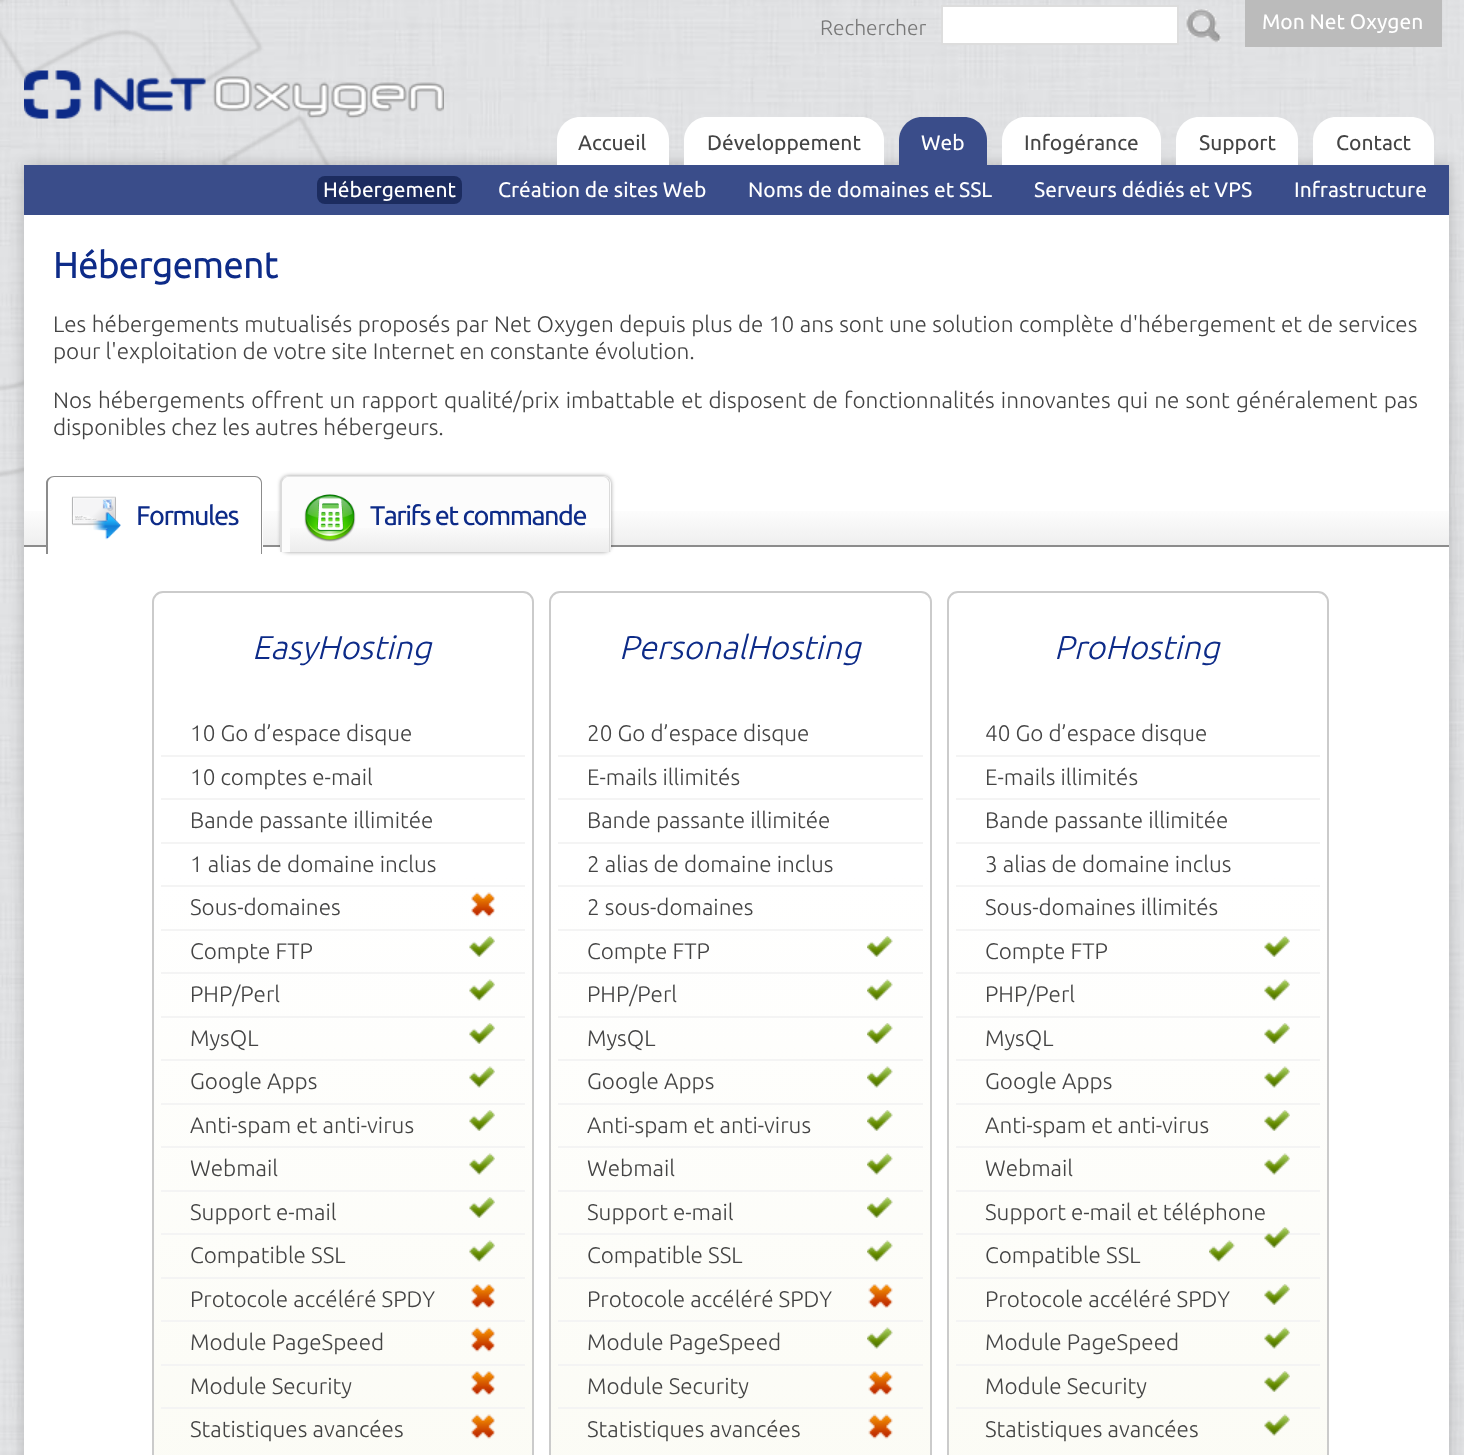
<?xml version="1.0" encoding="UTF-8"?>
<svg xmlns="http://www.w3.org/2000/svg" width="1464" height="1455">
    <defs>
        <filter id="blur1" x="-50%" y="-200%" width="200%" height="500%"><feGaussianBlur stdDeviation="7.5"/></filter>
        <linearGradient id="g1" gradientUnits="userSpaceOnUse" x1="24" y1="464" x2="24" y2="545"><stop offset="0" stop-color="#FFFFFF"/><stop offset="0.5" stop-color="#FFFFFF"/><stop offset="1" stop-color="#EFEFEF"/></linearGradient>
        <filter id="blur2" x="-50%" y="-200%" width="200%" height="500%"><feGaussianBlur stdDeviation="2"/></filter>
        <linearGradient id="g2" gradientUnits="userSpaceOnUse" x1="290" y1="486" x2="290" y2="561"><stop offset="0" stop-color="#FCFCFC"/><stop offset="0.5" stop-color="#FCFCFC"/><stop offset="1" stop-color="#E8E8E8"/></linearGradient>
        <clipPath id="clip1"><rect x="152" y="591" width="382" height="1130" rx="11"/></clipPath>
        <linearGradient id="g3" gradientUnits="userSpaceOnUse" x1="153" y1="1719" x2="153" y2="593"><stop offset="0" stop-color="#FAFAF1"/><stop offset="0.75" stop-color="#FFFFFF"/></linearGradient>
        <clipPath id="clip2"><rect x="549" y="591" width="383" height="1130" rx="11"/></clipPath>
        <linearGradient id="g4" gradientUnits="userSpaceOnUse" x1="551" y1="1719" x2="551" y2="593"><stop offset="0" stop-color="#FAFAF1"/><stop offset="0.75" stop-color="#FFFFFF"/></linearGradient>
        <clipPath id="clip3"><rect x="947" y="591" width="382" height="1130" rx="11"/></clipPath>
        <linearGradient id="g5" gradientUnits="userSpaceOnUse" x1="948" y1="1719" x2="948" y2="593"><stop offset="0" stop-color="#FAFAF1"/><stop offset="0.75" stop-color="#FFFFFF"/></linearGradient>
    </defs>
    <rect width="100%" height="100%" fill="#FFFFFF"/>
    <image x="0" y="0" width="1464" height="1455" href="img_01.png"/>
    <image x="0" y="0" width="331" height="477" href="img_02.png"/>
    <text x="820" y="35" font-family="Ubuntu" font-size="21" font-weight="300" fill="#777777">Rechercher</text>
    <rect x="942" y="6" width="236" height="38" fill="#FFFFFF" stroke="#DDDDDD" stroke-width="2"/>
    <image x="1186" y="9" width="35" height="34" href="img_03.png"/>
    <rect x="1245" y="0" width="197" height="47" fill="#BBBBBB"/>
    <text x="1262" y="29" font-family="Ubuntu" font-size="21" fill="#FFFFFF">Mon Net Oxygen</text>
    <image x="24" y="70" width="420" height="49" href="img_04.png"/>
    <rect x="24" y="165" width="1425" height="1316" rx="3" fill="#000000" fill-opacity="0.2" filter="url(#blur1)"/>
    <rect x="24" y="215" width="1425" height="1240" fill="#FFFFFF"/>
    <path d="M 922 117 H 964 C 976.5 117 987 127.5 987 140 V 165 H 899 V 140 C 899 127.5 909.5 117 922 117 Z" fill="#3A4D8A"/>
    <text x="921" y="150" font-family="Ubuntu" font-size="21" fill="#FFFFFF">Web</text>
    <rect x="24" y="165" width="1425" height="50" fill="#3A4D8A"/>
    <rect x="317" y="176" width="145" height="28" rx="8" fill="#1C2C5F"/>
    <text x="323" y="197" font-family="Ubuntu" font-size="21" fill="#FFFFFF">Hébergement</text>
    <text x="498" y="197" font-family="Ubuntu" font-size="21" fill="#FFFFFF">Création de sites Web</text>
    <text x="748" y="197" font-family="Ubuntu" font-size="21" fill="#FFFFFF">Noms de domaines et SSL</text>
    <text x="1034" y="197" font-family="Ubuntu" font-size="21" fill="#FFFFFF">Serveurs dédiés et VPS</text>
    <text x="1294" y="197" font-family="Ubuntu" font-size="21" fill="#FFFFFF">Infrastructure</text>
    <path d="M 580 117 H 646 C 658.5 117 669 127.5 669 140 V 165 H 557 V 140 C 557 127.5 567.5 117 580 117 Z" fill="#FFFFFF"/>
    <text x="578" y="150" font-family="Ubuntu" font-size="21" fill="#444444">Accueil</text>
    <path d="M 707 117 H 861 C 873.5 117 884 127.5 884 140 V 165 H 684 V 140 C 684 127.5 694.5 117 707 117 Z" fill="#FFFFFF"/>
    <text x="707" y="150" font-family="Ubuntu" font-size="21" fill="#444444">Développement</text>
    <path d="M 1025 117 H 1138 C 1150.5 117 1161 127.5 1161 140 V 165 H 1002 V 140 C 1002 127.5 1012.5 117 1025 117 Z" fill="#FFFFFF"/>
    <text x="1024" y="150" font-family="Ubuntu" font-size="21" fill="#444444">Infogérance</text>
    <path d="M 1199 117 H 1275 C 1287.5 117 1298 127.5 1298 140 V 165 H 1176 V 140 C 1176 127.5 1186.5 117 1199 117 Z" fill="#FFFFFF"/>
    <text x="1199" y="150" font-family="Ubuntu" font-size="21" fill="#444444">Support</text>
    <path d="M 1336 117 H 1411 C 1423.5 117 1434 127.5 1434 140 V 165 H 1313 V 140 C 1313 127.5 1323.5 117 1336 117 Z" fill="#FFFFFF"/>
    <text x="1336" y="150" font-family="Ubuntu" font-size="21" fill="#444444">Contact</text>
    <text x="53" y="278" font-family="Ubuntu" font-size="36" font-weight="700" fill="#0D2B88">Hébergement</text>
    <text font-family="Ubuntu" font-size="22.5" font-weight="300" fill="#444444">
        <tspan x="53" y="332" word-spacing="0.4">Les hébergements mutualisés proposés par Net Oxygen depuis plus de 10 ans sont une solution complète d'hébergement et de services</tspan>
        <tspan x="53" y="359">pour l'exploitation de votre site Internet en constante évolution.</tspan>
    </text>
    <text font-family="Ubuntu" font-size="22.5" font-weight="300" fill="#444444">
        <tspan x="53" y="408" word-spacing="1.1">Nos hébergements offrent un rapport qualité/prix imbattable et disposent de fonctionnalités innovantes qui ne sont généralement pas</tspan>
        <tspan x="53" y="435">disponibles chez les autres hébergeurs.</tspan>
    </text>
    <rect x="24" y="511" width="1425" height="34" fill="url(#g1)"/>
    <rect x="24" y="545" width="1425" height="2" fill="#8C8C8C"/>
    <path d="M 55 476 H 255 C 259.5 476 263 479.5 263 484 V 554 H 47 V 484 C 47 479.5 50.5 476 55 476 Z" fill="#FFFFFF"/>
    <path d="M 54 476 H 255 C 259 476 262 479 262 483 V 554 H 46 V 483 C 46 479 50 476 54 476 Z M 54 477 H 255 C 258 477 261 480 261 483 V 554 H 48 V 483 C 48 480 51 477 54 477 Z" fill="#8C8C8C" fill-rule="evenodd"/>
    <image x="71" y="496" width="50" height="44" href="img_05.png"/>
    <text x="136" y="525" font-family="Ubuntu" font-size="27" letter-spacing="-1.5" fill="#0D2B88">Formules</text>
    <rect x="281" y="476" width="330" height="76" rx="8" fill="#000000" fill-opacity="0.4" filter="url(#blur2)"/>
    <path d="M 289 476 H 603 C 607.5 476 611 479.5 611 484 V 552 H 281 V 484 C 281 479.5 284.5 476 289 476 Z" fill="#FCFCFC"/>
    <rect x="290" y="528" width="321" height="24" fill="url(#g2)"/>
    <path d="M 288 476 H 603 C 605 476 607 477 608 478 L 607 479 C 606 478 605 477 603 477 H 287 L 284 479 L 283 478 C 284 477 286 476 288 476 Z" fill="#E5E5E5"/>
    <path d="M 609 552 V 483 C 609 482 608 480 607 479 L 608 478 C 609 479 610 481 610 483 V 552 Z" fill="#DBDBDB"/>
    <path d="M 280 552 H 282 V 483 C 282 482 283 480 284 479 L 283 478 L 280 481 Z" fill="#DBDBDB"/>
    <image x="304" y="494" width="52" height="48" href="img_06.png"/>
    <text x="370" y="525" font-family="Ubuntu" font-size="27" letter-spacing="-1.5" fill="#0D2B88">Tarifs et commande</text>
    <g clip-path="url(#clip1)">
        <rect x="152" y="593" width="382" height="862" fill="url(#g3)"/>
    </g>
    <rect x="153" y="592" width="380" height="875" rx="10" fill="none" stroke="#CBCBCB" stroke-width="2"/>
    <text x="252" y="659" font-family="Ubuntu" font-size="33" font-weight="300" font-style="italic" fill="#0D2B88">EasyHosting</text>
    <rect x="161" y="755" width="364" height="2" fill="#F4F4F4"/>
    <text x="190" y="741" font-family="Ubuntu" font-size="22.5" font-weight="300" fill="#444444">10 Go d’espace disque</text>
    <rect x="161" y="798" width="364" height="2" fill="#F4F4F4"/>
    <text x="190" y="785" font-family="Ubuntu" font-size="22.5" font-weight="300" fill="#444444">10 comptes e-mail</text>
    <rect x="161" y="842" width="364" height="2" fill="#F4F4F4"/>
    <text x="190" y="828" font-family="Ubuntu" font-size="22.5" font-weight="300" fill="#444444">Bande passante illimitée</text>
    <rect x="161" y="885" width="364" height="2" fill="#F4F4F4"/>
    <text x="190" y="872" font-family="Ubuntu" font-size="22.5" font-weight="300" fill="#444444">1 alias de domaine inclus</text>
    <rect x="161" y="929" width="364" height="2" fill="#F4F4F4"/>
    <text x="190" y="915" font-family="Ubuntu" font-size="22.5" font-weight="300" fill="#444444">Sous-domaines</text>
    <image x="471" y="892" width="24" height="25" href="img_07.png"/>
    <rect x="161" y="972" width="364" height="2" fill="#F4F4F4"/>
    <text x="190" y="959" font-family="Ubuntu" font-size="22.5" font-weight="300" fill="#444444">Compte FTP</text>
    <image x="469" y="936" width="26" height="21" href="img_08.png"/>
    <rect x="161" y="1016" width="364" height="2" fill="#F4F4F4"/>
    <text x="190" y="1002" font-family="Ubuntu" font-size="22.5" font-weight="300" fill="#444444">PHP/Perl</text>
    <image x="469" y="979" width="26" height="22" href="img_09.png"/>
    <rect x="161" y="1059" width="364" height="2" fill="#F4F4F4"/>
    <text x="190" y="1046" font-family="Ubuntu" font-size="22.5" font-weight="300" fill="#444444">MysQL</text>
    <image x="469" y="1023" width="26" height="21" href="img_10.png"/>
    <rect x="161" y="1103" width="364" height="2" fill="#F4F4F4"/>
    <text x="190" y="1089" font-family="Ubuntu" font-size="22.5" font-weight="300" fill="#444444">Google Apps</text>
    <image x="469" y="1066" width="26" height="22" href="img_11.png"/>
    <rect x="161" y="1146" width="364" height="2" fill="#F4F4F4"/>
    <text x="190" y="1133" font-family="Ubuntu" font-size="22.5" font-weight="300" fill="#444444">Anti-spam et anti-virus</text>
    <image x="469" y="1110" width="26" height="21" href="img_12.png"/>
    <rect x="161" y="1190" width="364" height="2" fill="#F4F4F4"/>
    <text x="190" y="1176" font-family="Ubuntu" font-size="22.5" font-weight="300" fill="#444444">Webmail</text>
    <image x="469" y="1153" width="26" height="22" href="img_13.png"/>
    <rect x="161" y="1233" width="364" height="2" fill="#F4F4F4"/>
    <text x="190" y="1220" font-family="Ubuntu" font-size="22.5" font-weight="300" fill="#444444">Support e-mail</text>
    <image x="469" y="1197" width="26" height="21" href="img_14.png"/>
    <rect x="161" y="1277" width="364" height="2" fill="#F4F4F4"/>
    <text x="190" y="1263" font-family="Ubuntu" font-size="22.5" font-weight="300" fill="#444444">Compatible SSL</text>
    <image x="469" y="1240" width="26" height="22" href="img_15.png"/>
    <rect x="161" y="1320" width="364" height="2" fill="#F4F4F4"/>
    <text x="190" y="1307" font-family="Ubuntu" font-size="22.5" font-weight="300" fill="#444444">Protocole accéléré SPDY</text>
    <image x="471" y="1284" width="24" height="24" href="img_16.png"/>
    <rect x="161" y="1364" width="364" height="2" fill="#F4F4F4"/>
    <text x="190" y="1350" font-family="Ubuntu" font-size="22.5" font-weight="300" fill="#444444">Module PageSpeed</text>
    <image x="471" y="1327" width="24" height="25" href="img_17.png"/>
    <rect x="161" y="1407" width="364" height="2" fill="#F4F4F4"/>
    <text x="190" y="1394" font-family="Ubuntu" font-size="22.5" font-weight="300" fill="#444444">Module Security</text>
    <image x="471" y="1371" width="24" height="24" href="img_18.png"/>
    <text x="190" y="1437" font-family="Ubuntu" font-size="22.5" font-weight="300" fill="#444444">Statistiques avancées</text>
    <image x="471" y="1414" width="24" height="25" href="img_19.png"/>
    <g clip-path="url(#clip2)">
        <rect x="549" y="593" width="383" height="862" fill="url(#g4)"/>
    </g>
    <rect x="550" y="592" width="381" height="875" rx="10" fill="none" stroke="#CBCBCB" stroke-width="2"/>
    <text x="619" y="659" font-family="Ubuntu" font-size="33" font-weight="300" font-style="italic" fill="#0D2B88">PersonalHosting</text>
    <rect x="558" y="755" width="365" height="2" fill="#F4F4F4"/>
    <text x="587" y="741" font-family="Ubuntu" font-size="22.5" font-weight="300" fill="#444444">20 Go d’espace disque</text>
    <rect x="558" y="798" width="365" height="2" fill="#F4F4F4"/>
    <text x="587" y="785" font-family="Ubuntu" font-size="22.5" font-weight="300" fill="#444444">E-mails illimités</text>
    <rect x="558" y="842" width="365" height="2" fill="#F4F4F4"/>
    <text x="587" y="828" font-family="Ubuntu" font-size="22.5" font-weight="300" fill="#444444">Bande passante illimitée</text>
    <rect x="558" y="885" width="365" height="2" fill="#F4F4F4"/>
    <text x="587" y="872" font-family="Ubuntu" font-size="22.5" font-weight="300" fill="#444444">2 alias de domaine inclus</text>
    <rect x="558" y="929" width="365" height="2" fill="#F4F4F4"/>
    <text x="587" y="915" font-family="Ubuntu" font-size="22.5" font-weight="300" fill="#444444">2 sous-domaines</text>
    <rect x="558" y="972" width="365" height="2" fill="#F4F4F4"/>
    <text x="587" y="959" font-family="Ubuntu" font-size="22.5" font-weight="300" fill="#444444">Compte FTP</text>
    <image x="867" y="936" width="26" height="21" href="img_20.png"/>
    <rect x="558" y="1016" width="365" height="2" fill="#F4F4F4"/>
    <text x="587" y="1002" font-family="Ubuntu" font-size="22.5" font-weight="300" fill="#444444">PHP/Perl</text>
    <image x="867" y="979" width="26" height="22" href="img_21.png"/>
    <rect x="558" y="1059" width="365" height="2" fill="#F4F4F4"/>
    <text x="587" y="1046" font-family="Ubuntu" font-size="22.5" font-weight="300" fill="#444444">MysQL</text>
    <image x="867" y="1023" width="26" height="21" href="img_22.png"/>
    <rect x="558" y="1103" width="365" height="2" fill="#F4F4F4"/>
    <text x="587" y="1089" font-family="Ubuntu" font-size="22.5" font-weight="300" fill="#444444">Google Apps</text>
    <image x="867" y="1066" width="26" height="22" href="img_23.png"/>
    <rect x="558" y="1146" width="365" height="2" fill="#F4F4F4"/>
    <text x="587" y="1133" font-family="Ubuntu" font-size="22.5" font-weight="300" fill="#444444">Anti-spam et anti-virus</text>
    <image x="867" y="1110" width="26" height="21" href="img_24.png"/>
    <rect x="558" y="1190" width="365" height="2" fill="#F4F4F4"/>
    <text x="587" y="1176" font-family="Ubuntu" font-size="22.5" font-weight="300" fill="#444444">Webmail</text>
    <image x="867" y="1153" width="26" height="22" href="img_25.png"/>
    <rect x="558" y="1233" width="365" height="2" fill="#F4F4F4"/>
    <text x="587" y="1220" font-family="Ubuntu" font-size="22.5" font-weight="300" fill="#444444">Support e-mail</text>
    <image x="867" y="1197" width="26" height="21" href="img_26.png"/>
    <rect x="558" y="1277" width="365" height="2" fill="#F4F4F4"/>
    <text x="587" y="1263" font-family="Ubuntu" font-size="22.5" font-weight="300" fill="#444444">Compatible SSL</text>
    <image x="867" y="1240" width="26" height="22" href="img_27.png"/>
    <rect x="558" y="1320" width="365" height="2" fill="#F4F4F4"/>
    <text x="587" y="1307" font-family="Ubuntu" font-size="22.5" font-weight="300" fill="#444444">Protocole accéléré SPDY</text>
    <image x="868" y="1284" width="25" height="24" href="img_28.png"/>
    <rect x="558" y="1364" width="365" height="2" fill="#F4F4F4"/>
    <text x="587" y="1350" font-family="Ubuntu" font-size="22.5" font-weight="300" fill="#444444">Module PageSpeed</text>
    <image x="867" y="1327" width="26" height="22" href="img_29.png"/>
    <rect x="558" y="1407" width="365" height="2" fill="#F4F4F4"/>
    <text x="587" y="1394" font-family="Ubuntu" font-size="22.5" font-weight="300" fill="#444444">Module Security</text>
    <image x="868" y="1371" width="25" height="24" href="img_30.png"/>
    <text x="587" y="1437" font-family="Ubuntu" font-size="22.5" font-weight="300" fill="#444444">Statistiques avancées</text>
    <image x="868" y="1414" width="25" height="25" href="img_31.png"/>
    <g clip-path="url(#clip3)">
        <rect x="947" y="593" width="382" height="862" fill="url(#g5)"/>
    </g>
    <rect x="948" y="592" width="380" height="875" rx="10" fill="none" stroke="#CBCBCB" stroke-width="2"/>
    <text x="1054" y="659" font-family="Ubuntu" font-size="33" font-weight="300" font-style="italic" fill="#0D2B88">ProHosting</text>
    <rect x="956" y="755" width="364" height="2" fill="#F4F4F4"/>
    <text x="985" y="741" font-family="Ubuntu" font-size="22.5" font-weight="300" fill="#444444">40 Go d’espace disque</text>
    <rect x="956" y="798" width="364" height="2" fill="#F4F4F4"/>
    <text x="985" y="785" font-family="Ubuntu" font-size="22.5" font-weight="300" fill="#444444">E-mails illimités</text>
    <rect x="956" y="842" width="364" height="2" fill="#F4F4F4"/>
    <text x="985" y="828" font-family="Ubuntu" font-size="22.5" font-weight="300" fill="#444444">Bande passante illimitée</text>
    <rect x="956" y="885" width="364" height="2" fill="#F4F4F4"/>
    <text x="985" y="872" font-family="Ubuntu" font-size="22.5" font-weight="300" fill="#444444">3 alias de domaine inclus</text>
    <rect x="956" y="929" width="364" height="2" fill="#F4F4F4"/>
    <text x="985" y="915" font-family="Ubuntu" font-size="22.5" font-weight="300" fill="#444444">Sous-domaines illimités</text>
    <rect x="956" y="972" width="364" height="2" fill="#F4F4F4"/>
    <text x="985" y="959" font-family="Ubuntu" font-size="22.5" font-weight="300" fill="#444444">Compte FTP</text>
    <image x="1264" y="936" width="26" height="21" href="img_08.png"/>
    <rect x="956" y="1016" width="364" height="2" fill="#F4F4F4"/>
    <text x="985" y="1002" font-family="Ubuntu" font-size="22.5" font-weight="300" fill="#444444">PHP/Perl</text>
    <image x="1264" y="979" width="26" height="22" href="img_09.png"/>
    <rect x="956" y="1059" width="364" height="2" fill="#F4F4F4"/>
    <text x="985" y="1046" font-family="Ubuntu" font-size="22.5" font-weight="300" fill="#444444">MysQL</text>
    <image x="1264" y="1023" width="26" height="21" href="img_10.png"/>
    <rect x="956" y="1103" width="364" height="2" fill="#F4F4F4"/>
    <text x="985" y="1089" font-family="Ubuntu" font-size="22.5" font-weight="300" fill="#444444">Google Apps</text>
    <image x="1264" y="1066" width="26" height="22" href="img_11.png"/>
    <rect x="956" y="1146" width="364" height="2" fill="#F4F4F4"/>
    <text x="985" y="1133" font-family="Ubuntu" font-size="22.5" font-weight="300" fill="#444444">Anti-spam et anti-virus</text>
    <image x="1264" y="1110" width="26" height="21" href="img_12.png"/>
    <rect x="956" y="1190" width="364" height="2" fill="#F4F4F4"/>
    <text x="985" y="1176" font-family="Ubuntu" font-size="22.5" font-weight="300" fill="#444444">Webmail</text>
    <image x="1264" y="1153" width="26" height="22" href="img_13.png"/>
    <rect x="956" y="1233" width="364" height="2" fill="#F4F4F4"/>
    <text x="985" y="1220" font-family="Ubuntu" font-size="22.5" font-weight="300" fill="#444444">Support e-mail et téléphone</text>
    <image x="1264" y="1227" width="26" height="21" href="img_32.png"/>
    <rect x="956" y="1277" width="364" height="2" fill="#F4F4F4"/>
    <text x="985" y="1263" font-family="Ubuntu" font-size="22.5" font-weight="300" fill="#444444">Compatible SSL</text>
    <image x="1209" y="1240" width="26" height="22" href="img_33.png"/>
    <rect x="956" y="1320" width="364" height="2" fill="#F4F4F4"/>
    <text x="985" y="1307" font-family="Ubuntu" font-size="22.5" font-weight="300" fill="#444444">Protocole accéléré SPDY</text>
    <image x="1264" y="1284" width="26" height="21" href="img_34.png"/>
    <rect x="956" y="1364" width="364" height="2" fill="#F4F4F4"/>
    <text x="985" y="1350" font-family="Ubuntu" font-size="22.5" font-weight="300" fill="#444444">Module PageSpeed</text>
    <image x="1264" y="1327" width="26" height="22" href="img_35.png"/>
    <rect x="956" y="1407" width="364" height="2" fill="#F4F4F4"/>
    <text x="985" y="1394" font-family="Ubuntu" font-size="22.5" font-weight="300" fill="#444444">Module Security</text>
    <image x="1264" y="1371" width="26" height="21" href="img_36.png"/>
    <text x="985" y="1437" font-family="Ubuntu" font-size="22.5" font-weight="300" fill="#444444">Statistiques avancées</text>
    <image x="1264" y="1414" width="26" height="22" href="img_37.png"/>
</svg>
